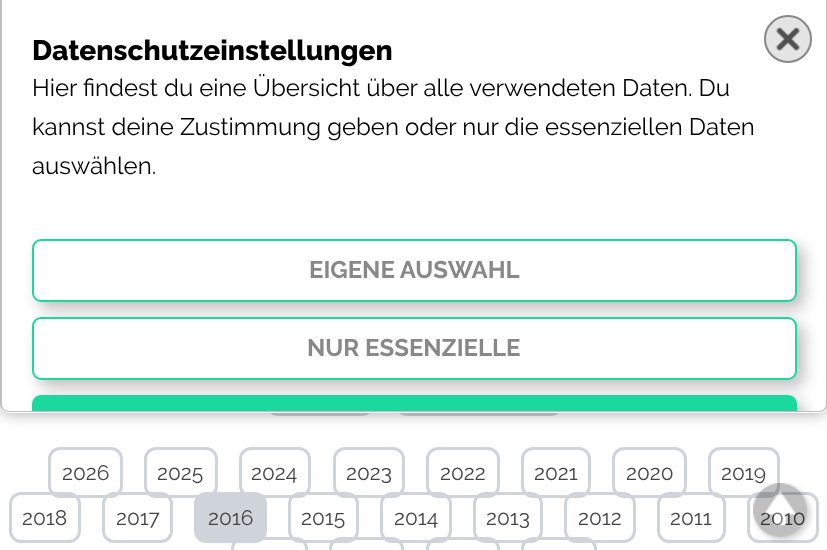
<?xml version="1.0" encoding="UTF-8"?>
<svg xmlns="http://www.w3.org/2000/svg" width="827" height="550">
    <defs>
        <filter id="blur1" x="-50%" y="-200%" width="200%" height="500%"><feGaussianBlur stdDeviation="7.5"/></filter>
        <clipPath id="clip1"><path d="M 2 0 H 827 V 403 C 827 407.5 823.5 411 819 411 H 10 C 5.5 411 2 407.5 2 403 Z"/></clipPath>
    </defs>
    <rect width="100%" height="100%" fill="#FFFFFF"/>
    <rect x="267.5" y="366.5" width="105" height="48" rx="10.5" fill="none" stroke="#CED4DA" stroke-width="3"/>
    <rect x="396.5" y="366.5" width="165" height="48" rx="10.5" fill="none" stroke="#CED4DA" stroke-width="3"/>
    <rect x="0" y="0" width="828" height="413" rx="9" fill="#000000" fill-opacity="0.35" filter="url(#blur1)"/>
    <path d="M 0 0 H 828 V 404 C 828 409 824 413 819 413 H 9 C 4 413 0 409 0 404 Z" fill="#FFFFFF"/>
    <path d="M 0 0 H 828 V 404 C 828 408 824 412 819 412 H 9 C 4 412 0 408 0 404 Z M 2 0 H 826 V 404 C 826 408 823 411 819 411 H 9 C 5 411 2 408 2 404 Z" fill="#BFBFBF" fill-rule="evenodd"/>
    <text x="32" y="60" font-family="Raleway" font-size="28.1" font-weight="800" fill="#000000">Datenschutzeinstellungen</text>
    <text font-family="Raleway" font-size="24" fill="#000000">
        <tspan x="32" y="96">Hier findest du eine Übersicht über alle verwendeten Daten. Du</tspan>
        <tspan x="32" y="135">kannst deine Zustimmung geben oder nur die essenziellen Daten</tspan>
        <tspan x="32" y="174">auswählen.</tspan>
    </text>
    <rect x="39" y="246" width="765" height="63" rx="9" fill="#000000" fill-opacity="0.25" filter="url(#blur1)"/>
    <rect x="33" y="240" width="763" height="61" rx="8" fill="#FFFFFF" stroke="#1BD89E" stroke-width="2"/>
    <text x="309" y="278" font-family="Raleway" font-size="24" font-weight="700" fill="#888888">EIGENE AUSWAHL</text>
    <rect x="39" y="324" width="765" height="63" rx="9" fill="#000000" fill-opacity="0.25" filter="url(#blur1)"/>
    <rect x="33" y="318" width="763" height="61" rx="8" fill="#FFFFFF" stroke="#1BD89E" stroke-width="2"/>
    <text x="307" y="356" font-family="Raleway" font-size="24" font-weight="700" fill="#888888">NUR ESSENZIELLE</text>
    <rect x="49.5" y="448.5" width="72" height="48" rx="10.5" fill="none" stroke="#CED4DA" stroke-width="3"/>
    <rect x="145.5" y="448.5" width="71" height="48" rx="10.5" fill="none" stroke="#CED4DA" stroke-width="3"/>
    <rect x="240.5" y="448.5" width="69" height="48" rx="10.5" fill="none" stroke="#CED4DA" stroke-width="3"/>
    <rect x="334.5" y="448.5" width="69" height="48" rx="10.5" fill="none" stroke="#CED4DA" stroke-width="3"/>
    <rect x="427.5" y="448.5" width="71" height="48" rx="10.5" fill="none" stroke="#CED4DA" stroke-width="3"/>
    <rect x="522.5" y="448.5" width="67" height="48" rx="10.5" fill="none" stroke="#CED4DA" stroke-width="3"/>
    <rect x="613.5" y="448.5" width="72" height="48" rx="10.5" fill="none" stroke="#CED4DA" stroke-width="3"/>
    <rect x="709.5" y="448.5" width="69" height="48" rx="10.5" fill="none" stroke="#CED4DA" stroke-width="3"/>
    <text x="721" y="480" font-family="Raleway" font-size="21" fill="#444444">2019</text>
    <rect x="748.5" y="493.5" width="69" height="48" rx="10.5" fill="none" stroke="#CED4DA" stroke-width="3"/>
    <text x="760" y="525" font-family="Raleway" font-size="21" fill="#444444">2010</text>
    <image x="753" y="483" width="60" height="60" href="img_02.png"/>
    <g clip-path="url(#clip1)">
        <rect x="39" y="402" width="765" height="60" rx="9" fill="#000000" fill-opacity="0.25" filter="url(#blur1)"/>
    </g>
    <path d="M 41 395 H 788 C 793 395 797 399 797 404 V 411 H 32 V 404 C 32 399 36 395 41 395 Z" fill="#1BD89E"/>
    <circle cx="788" cy="39" r="24" fill="#E4E4E4"/>
    <image x="775" y="27" width="26" height="24" href="img_01.png"/>
    <circle cx="788" cy="39" r="23" fill="none" stroke="#888888" stroke-width="2"/>
    <text x="62" y="480" font-family="Raleway" font-size="21" fill="#444444">2026</text>
    <text x="157" y="480" font-family="Raleway" font-size="21" fill="#444444">2025</text>
    <text x="251" y="480" font-family="Raleway" font-size="21" fill="#444444">2024</text>
    <text x="346" y="480" font-family="Raleway" font-size="21" fill="#444444">2023</text>
    <text x="440" y="480" font-family="Raleway" font-size="21" fill="#444444">2022</text>
    <text x="534" y="480" font-family="Raleway" font-size="21" fill="#444444">2021</text>
    <text x="626" y="480" font-family="Raleway" font-size="21" fill="#444444">2020</text>
    <rect x="10.5" y="493.5" width="69" height="48" rx="10.5" fill="none" stroke="#CED4DA" stroke-width="3"/>
    <text x="22" y="525" font-family="Raleway" font-size="21" fill="#444444">2018</text>
    <rect x="103.5" y="493.5" width="68" height="48" rx="10.5" fill="none" stroke="#CED4DA" stroke-width="3"/>
    <text x="116" y="525" font-family="Raleway" font-size="21" fill="#444444">2017</text>
    <rect x="195.5" y="493.5" width="70" height="48" rx="10.5" fill="#CED4DA" stroke="#CED4DA" stroke-width="3"/>
    <text x="208" y="525" font-family="Raleway" font-size="21" fill="#444444">2016</text>
    <rect x="289.5" y="493.5" width="68" height="48" rx="10.5" fill="none" stroke="#CED4DA" stroke-width="3"/>
    <text x="301" y="525" font-family="Raleway" font-size="21" fill="#444444">2015</text>
    <rect x="381.5" y="493.5" width="69" height="48" rx="10.5" fill="none" stroke="#CED4DA" stroke-width="3"/>
    <text x="394" y="525" font-family="Raleway" font-size="21" fill="#444444">2014</text>
    <rect x="474.5" y="493.5" width="67" height="48" rx="10.5" fill="none" stroke="#CED4DA" stroke-width="3"/>
    <text x="486" y="525" font-family="Raleway" font-size="21" fill="#444444">2013</text>
    <rect x="565.5" y="493.5" width="69" height="48" rx="10.5" fill="none" stroke="#CED4DA" stroke-width="3"/>
    <text x="578" y="525" font-family="Raleway" font-size="21" fill="#444444">2012</text>
    <rect x="658.5" y="493.5" width="66" height="48" rx="10.5" fill="none" stroke="#CED4DA" stroke-width="3"/>
    <text x="670" y="525" font-family="Raleway" font-size="21" fill="#444444">2011</text>
    <rect x="232.5" y="538.5" width="74" height="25" rx="10.5" fill="none" stroke="#CED4DA" stroke-width="3"/>
    <rect x="330.5" y="538.5" width="72" height="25" rx="10.5" fill="none" stroke="#CED4DA" stroke-width="3"/>
    <rect x="427.5" y="538.5" width="71" height="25" rx="10.5" fill="none" stroke="#CED4DA" stroke-width="3"/>
    <rect x="522.5" y="538.5" width="73" height="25" rx="10.5" fill="none" stroke="#CED4DA" stroke-width="3"/>
</svg>
